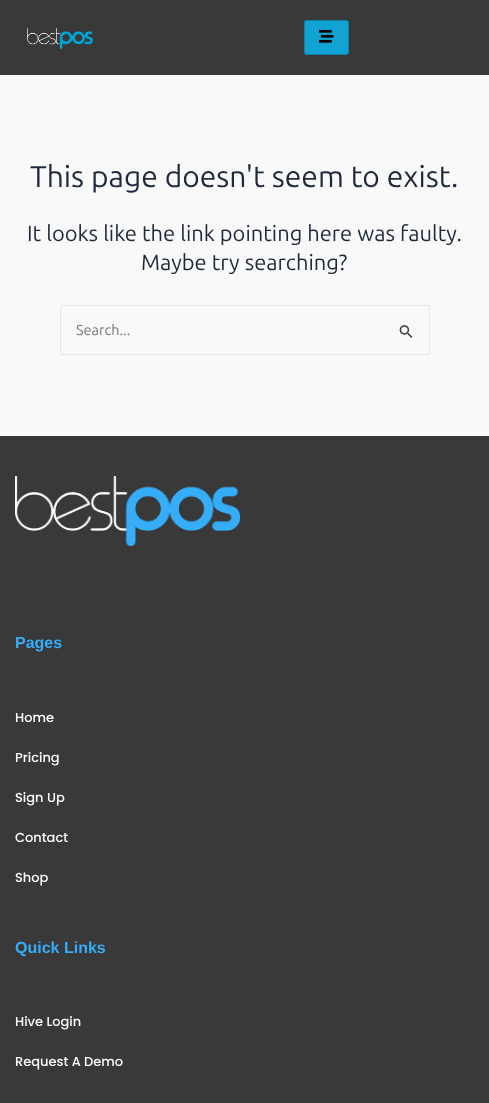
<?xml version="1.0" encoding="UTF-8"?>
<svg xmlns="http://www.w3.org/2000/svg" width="489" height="1103">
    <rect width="100%" height="100%" fill="#F9F9F9"/>
    <rect x="0" y="0" width="489" height="75" fill="#393939"/>
    <image x="27" y="28" width="66" height="21" href="img_01.png"/>
    <rect x="304" y="20" width="45" height="35" rx="3" fill="#10A3D3"/>
    <rect x="304.5" y="20.5" width="44" height="34" rx="2.5" fill="none" stroke="#000000" stroke-opacity="0.2"/>
    <image x="319" y="29" width="15" height="14" href="img_02.png"/>
    <text x="30" y="187" font-family="Ubuntu" font-size="30" fill="#1E293B">This page doesn't seem to exist.</text>
    <text x="27" y="241" font-family="Ubuntu" font-size="21.9" fill="#1E293B">It looks like the link pointing here was faulty.</text>
    <text x="141" y="270" font-family="Ubuntu" font-size="21.9" fill="#1E293B">Maybe try searching?</text>
    <rect x="60.5" y="305.5" width="369" height="49" rx="1.5" fill="none" stroke="#E2E8F0"/>
    <text x="76" y="335" font-family="Ubuntu" font-size="14.5" fill="#757575">Search...</text>
    <image x="399" y="325" width="14" height="13" href="img_03.png"/>
    <rect x="0" y="436" width="489" height="667" fill="#393939"/>
    <image x="15" y="476" width="225" height="70" href="img_04.png"/>
    <text x="15" y="648" font-family="Liberation Sans" font-size="16" font-weight="700" fill="#35ADF8">Pages</text>
    <text x="15" y="722" font-family="Poppins" font-size="13" font-weight="500" fill="#F9FAFB">Home</text>
    <text x="15" y="762" font-family="Poppins" font-size="13" font-weight="500" fill="#F9FAFB">Pricing</text>
    <text x="15" y="802" font-family="Poppins" font-size="13" font-weight="500" fill="#F9FAFB">Sign Up</text>
    <text x="15" y="842" font-family="Poppins" font-size="13" font-weight="500" fill="#F9FAFB">Contact</text>
    <text x="15" y="882" font-family="Poppins" font-size="13" font-weight="500" fill="#F9FAFB">Shop</text>
    <text x="15" y="953" font-family="Liberation Sans" font-size="16" font-weight="700" fill="#35ADF8">Quick Links</text>
    <text x="15" y="1026" font-family="Poppins" font-size="13" font-weight="500" fill="#F9FAFB">Hive Login</text>
    <text x="15" y="1066" font-family="Poppins" font-size="13" font-weight="500" fill="#F9FAFB">Request A Demo</text>
</svg>
